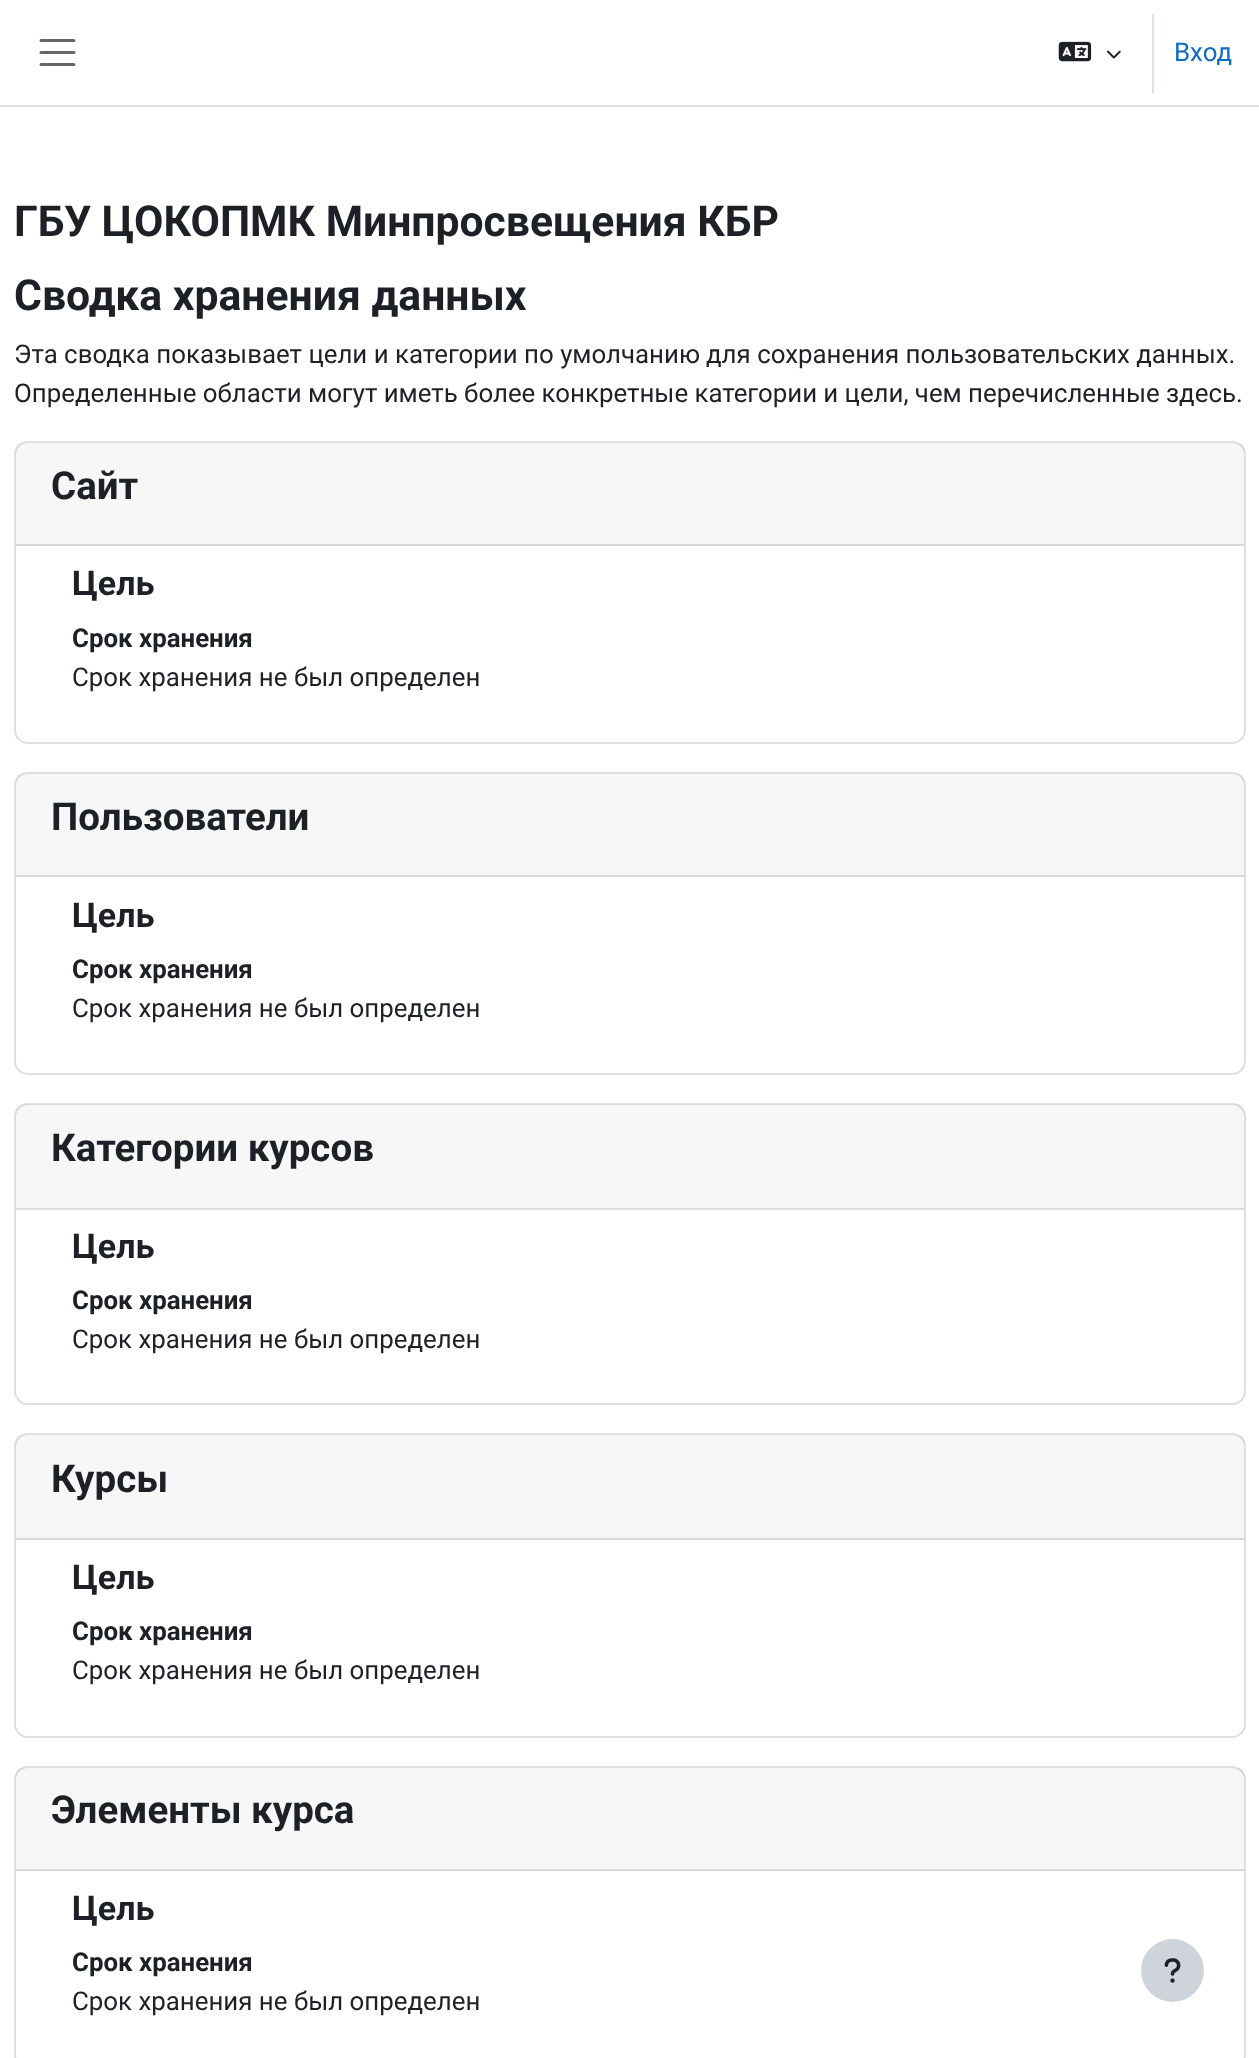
<?xml version="1.0" encoding="UTF-8"?>
<svg xmlns="http://www.w3.org/2000/svg" width="1259" height="2058">
    <rect width="100%" height="100%" fill="#FFFFFF"/>
    <rect x="0" y="105" width="1259" height="2" fill="#DEE2E6"/>
    <path d="M 41 40.5 H 74 M 41 52.5 H 74 M 41 64.5 H 74" fill="none" stroke="#666666" stroke-width="3" stroke-linecap="round"/>
    <image x="1058" y="41" width="34" height="21" href="img_01.png"/>
    <image x="1107" y="50" width="14" height="9" href="img_02.png"/>
    <rect x="1152" y="14" width="2" height="79" fill="#DEE2E6"/>
    <text x="1174" y="61" font-family="Roboto" font-size="25.85" fill="#0F6CBF">Вход</text>
    <text font-family="Roboto" font-size="42.7" font-weight="700" fill="#1D2125">
        <tspan x="14" y="236">ГБУ ЦОКОПМК Минпросвещения КБР</tspan>
        <tspan x="14" y="310">Сводка хранения данных</tspan>
    </text>
    <text x="14" y="363" font-family="Roboto" font-size="25.85" fill="#1D2125">Эта сводка показывает цели и категории по умолчанию</text>
    <text x="706" y="363" font-family="Roboto" font-size="25.85" fill="#1D2125">для сохранения пользовательских данных.</text>
    <text x="14" y="402" word-spacing="-0.1" font-family="Roboto" font-size="25.85" fill="#1D2125">Определенные области могут иметь более конкретные категории и цели, чем перечисленные здесь.</text>
    <rect x="15" y="442" width="1230" height="301" rx="13" fill="none" stroke="#DFDFDF" stroke-width="2"/>
    <rect x="16" y="443" width="1228" height="101" fill="#000000" fill-opacity="0.03"/>
    <rect x="16" y="544" width="1228" height="2" fill="#D8D8D8"/>
    <text x="51" y="499" font-family="Roboto" font-size="38.5" font-weight="700" fill="#1D2125">Сайт</text>
    <text x="72" y="595" font-family="Roboto" font-size="34" font-weight="700" fill="#1D2125">Цель</text>
    <text x="72" y="647" font-family="Roboto" font-size="25.85" font-weight="700" fill="#1D2125">Срок хранения</text>
    <text x="72" y="686" font-family="Roboto" font-size="25.85" fill="#1D2125">Срок хранения не был определен</text>
    <rect x="15" y="773" width="1230" height="301" rx="13" fill="none" stroke="#DFDFDF" stroke-width="2"/>
    <rect x="16" y="774" width="1228" height="101" fill="#000000" fill-opacity="0.03"/>
    <rect x="16" y="875" width="1228" height="2" fill="#D8D8D8"/>
    <text x="51" y="830" font-family="Roboto" font-size="38.5" font-weight="700" fill="#1D2125">Пользователи</text>
    <text x="72" y="927" font-family="Roboto" font-size="34" font-weight="700" fill="#1D2125">Цель</text>
    <text x="72" y="978" font-family="Roboto" font-size="25.85" font-weight="700" fill="#1D2125">Срок хранения</text>
    <text x="72" y="1017" font-family="Roboto" font-size="25.85" fill="#1D2125">Срок хранения не был определен</text>
    <rect x="15" y="1104" width="1230" height="300" rx="13" fill="none" stroke="#DFDFDF" stroke-width="2"/>
    <rect x="16" y="1104" width="1228" height="105" fill="#000000" fill-opacity="0.03"/>
    <rect x="16" y="1208" width="1228" height="2" fill="#000000" fill-opacity="0.12"/>
    <text x="51" y="1161" font-family="Roboto" font-size="38.5" font-weight="700" fill="#1D2125">Категории курсов</text>
    <text x="72" y="1258" font-family="Roboto" font-size="34" font-weight="700" fill="#1D2125">Цель</text>
    <text x="72" y="1309" font-family="Roboto" font-size="25.85" font-weight="700" fill="#1D2125">Срок хранения</text>
    <text x="72" y="1348" font-family="Roboto" font-size="25.85" fill="#1D2125">Срок хранения не был определен</text>
    <rect x="15" y="1434" width="1230" height="303" rx="13" fill="none" stroke="#DFDFDF" stroke-width="2"/>
    <rect x="16" y="1435" width="1228" height="103" fill="#000000" fill-opacity="0.03"/>
    <rect x="16" y="1538" width="1228" height="2" fill="#D8D8D8"/>
    <text x="51" y="1492" font-family="Roboto" font-size="38.5" font-weight="700" fill="#1D2125">Курсы</text>
    <text x="72" y="1589" font-family="Roboto" font-size="34" font-weight="700" fill="#1D2125">Цель</text>
    <text x="72" y="1640" font-family="Roboto" font-size="25.85" font-weight="700" fill="#1D2125">Срок хранения</text>
    <text x="72" y="1679" font-family="Roboto" font-size="25.85" fill="#1D2125">Срок хранения не был определен</text>
    <rect x="15" y="1767" width="1230" height="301" rx="13" fill="none" stroke="#DFDFDF" stroke-width="2"/>
    <rect x="16" y="1768" width="1228" height="101" fill="#000000" fill-opacity="0.03"/>
    <rect x="16" y="1869" width="1228" height="2" fill="#D8D8D8"/>
    <text x="51" y="1823" font-family="Roboto" font-size="38.5" font-weight="700" fill="#1D2125">Элементы курса</text>
    <text x="72" y="1920" font-family="Roboto" font-size="34" font-weight="700" fill="#1D2125">Цель</text>
    <text x="72" y="1971" font-family="Roboto" font-size="25.85" font-weight="700" fill="#1D2125">Срок хранения</text>
    <text x="72" y="2010" font-family="Roboto" font-size="25.85" fill="#1D2125">Срок хранения не был определен</text>
    <circle cx="1172.5" cy="1970.5" r="31.5" fill="#CED4DA"/>
    <image x="1164" y="1958" width="17" height="25" href="img_03.png"/>
</svg>
